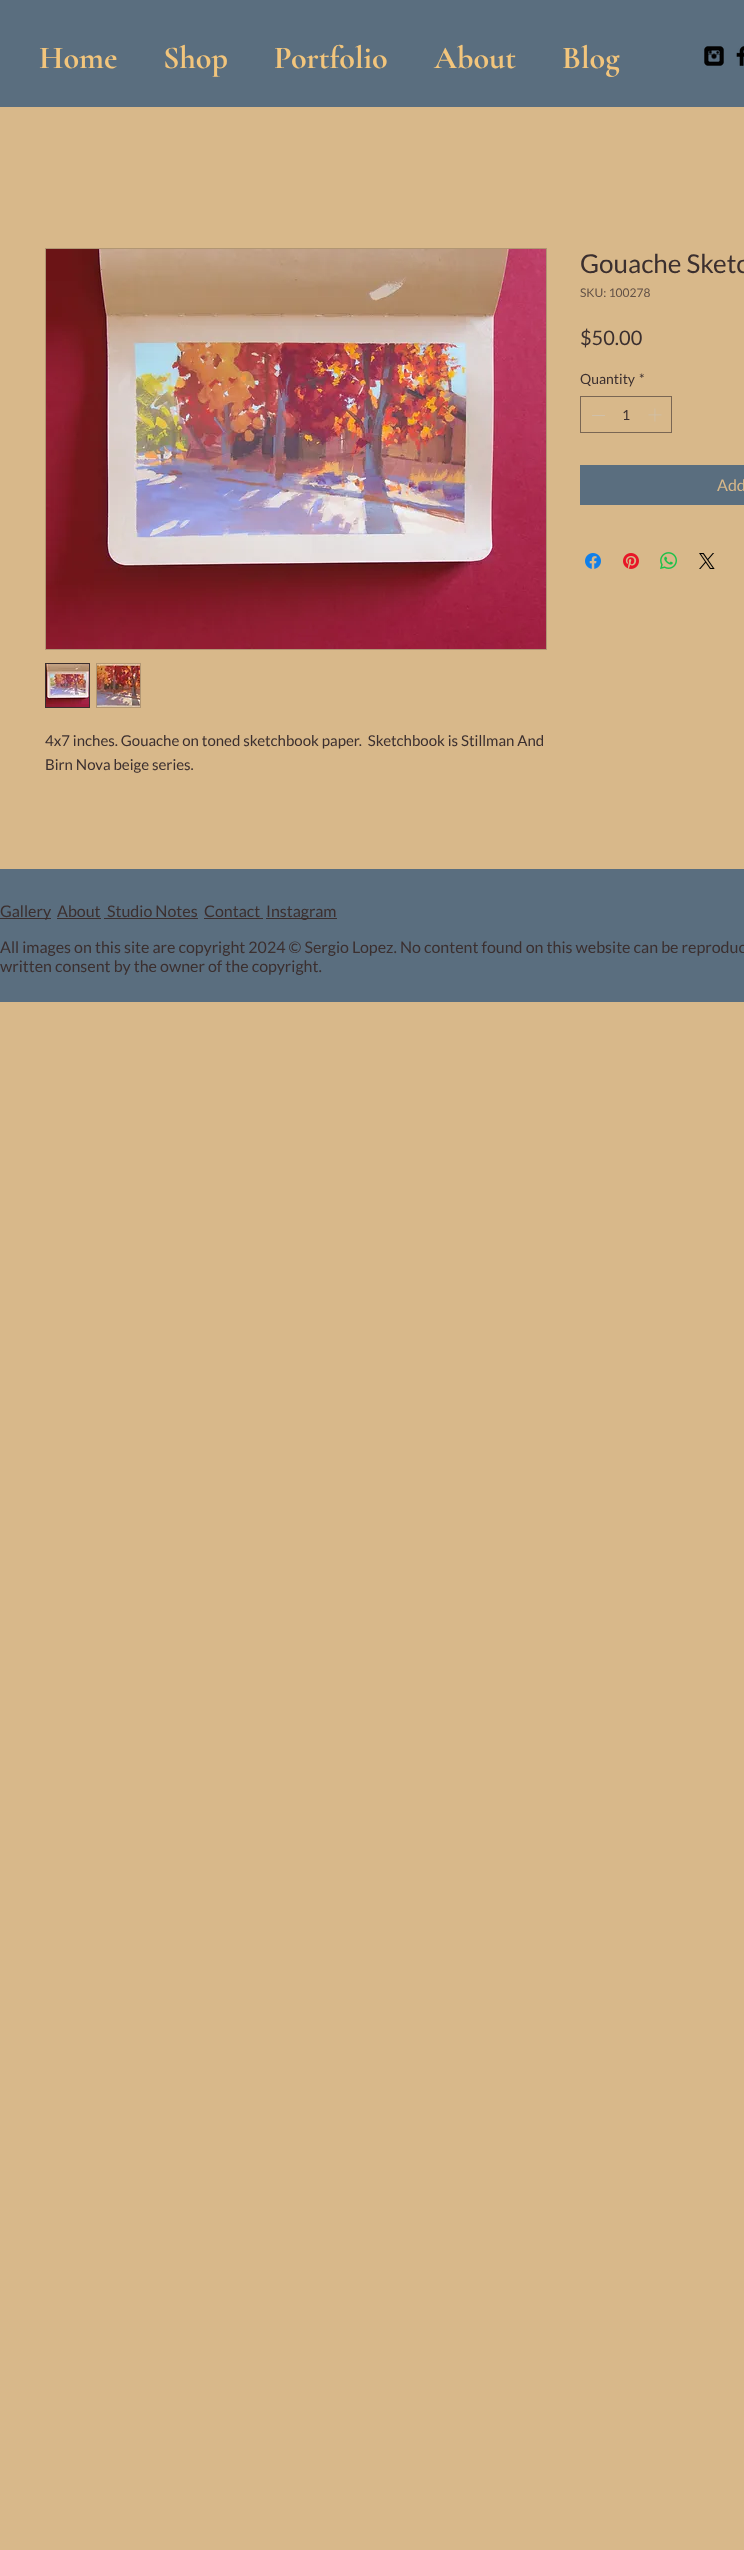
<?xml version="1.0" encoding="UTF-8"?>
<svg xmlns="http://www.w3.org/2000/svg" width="744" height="2550">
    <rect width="100%" height="100%" fill="#D8B88A"/>
    <rect x="0" y="0" width="744" height="107" fill="#5A6E7F"/>
    <text x="39" y="68" font-family="Cormorant Garamond" font-size="32" font-weight="700" fill="#F2C57C">Home</text>
    <text x="163" y="68" font-family="Cormorant Garamond" font-size="32" font-weight="700" fill="#F2C57C">Shop</text>
    <text x="274" y="68" font-family="Cormorant Garamond" font-size="32" font-weight="700" fill="#F2C57C">Portfolio</text>
    <text x="434" y="68" font-family="Cormorant Garamond" font-size="32" font-weight="700" fill="#F2C57C">About</text>
    <text x="562" y="68" font-family="Cormorant Garamond" font-size="32" font-weight="700" fill="#F2C57C">Blog</text>
    <image x="704" y="46" width="20" height="20" href="img_01.png"/>
    <image x="736" y="46" width="8" height="20" href="img_02.png"/>
    <text x="580" y="273" font-family="Lato" font-size="26" fill="#3B2F2F">Gouache Sketc</text>
    <text x="580" y="297" font-family="Lato" font-size="12" fill="#625146">SKU: 100278</text>
    <text x="580" y="345" font-family="Lato" font-size="20" fill="#3B2F2F">$50.00</text>
    <text x="580" y="384" font-family="Lato" font-size="14" fill="#3B2F2F">Quantity</text>
    <text x="639" y="384" font-family="Lato" font-size="14" fill="#3B2F2F">*</text>
    <rect x="580.5" y="396.5" width="91" height="36" fill="none" stroke="#7A6653"/>
    <rect x="592" y="415" width="13" height="1" fill="#D0C0A9"/>
    <text x="622" y="420" font-family="Lato" font-size="14" fill="#3B2F2F">1</text>
    <image x="648" y="408" width="14" height="14" href="img_03.png"/>
    <rect x="580" y="465" width="164" height="40" fill="#5A6E7F"/>
    <text x="717" y="491" font-family="Lato" font-size="16" fill="#D8B88A">Add</text>
    <image x="585" y="553" width="16" height="16" href="img_04.png"/>
    <image x="623" y="553" width="16" height="16" href="img_05.png"/>
    <image x="660" y="552" width="17" height="17" href="img_06.png"/>
    <image x="699" y="553" width="16" height="16" href="img_07.png"/>
    <rect x="45.5" y="248.5" width="501" height="401" fill="none" stroke="#B19673"/>
    <image x="46" y="249" width="500" height="400" href="img_08.png"/>
    <rect x="45.5" y="663.5" width="44" height="44" fill="none" stroke="#3B2F2F"/>
    <image x="46" y="664" width="43" height="43" href="img_09.png"/>
    <rect x="96" y="663" width="45" height="45" fill="#B19673"/>
    <image x="97" y="664" width="43" height="43" href="img_10.png"/>
    <text font-family="Lato" font-size="15" fill="#3B2F2F" xml:space="preserve"><tspan x="45" y="746">4x7 inches. Gouache on toned sketchbook paper.  Sketchbook is Stillman And</tspan><tspan x="45" y="770">Birn Nova beige series.</tspan></text>
    <rect x="0" y="869" width="744" height="133" fill="#5A6E7F"/>
    <rect x="0" y="918" width="51" height="1" fill="#3B2F2F"/>
    <text x="0" y="917" font-family="Lato" font-size="16" fill="#3B2F2F">Gallery</text>
    <text x="57" y="917" font-family="Lato" font-size="16" fill="#3B2F2F">About</text>
    <rect x="57" y="918" width="44" height="1" fill="#3B2F2F"/>
    <text x="107" y="917" font-family="Lato" font-size="16" fill="#3B2F2F">Studio Notes</text>
    <rect x="104" y="918" width="94" height="1" fill="#3B2F2F"/>
    <text x="204" y="917" font-family="Lato" font-size="16" fill="#3B2F2F">Contact</text>
    <rect x="204" y="918" width="59" height="1" fill="#3B2F2F"/>
    <rect x="266" y="918" width="71" height="1" fill="#3B2F2F"/>
    <text x="266" y="917" font-family="Lato" font-size="16" fill="#3B2F2F">Instagram</text>
    <text font-family="Lato" font-size="16" fill="#3B2F2F">
        <tspan x="0" y="953">All images on this site are copyright 2024 © Sergio Lopez. No content found on this website can be reproduc</tspan>
        <tspan x="0" y="972">written consent by the owner of the copyright.</tspan>
    </text>
</svg>
